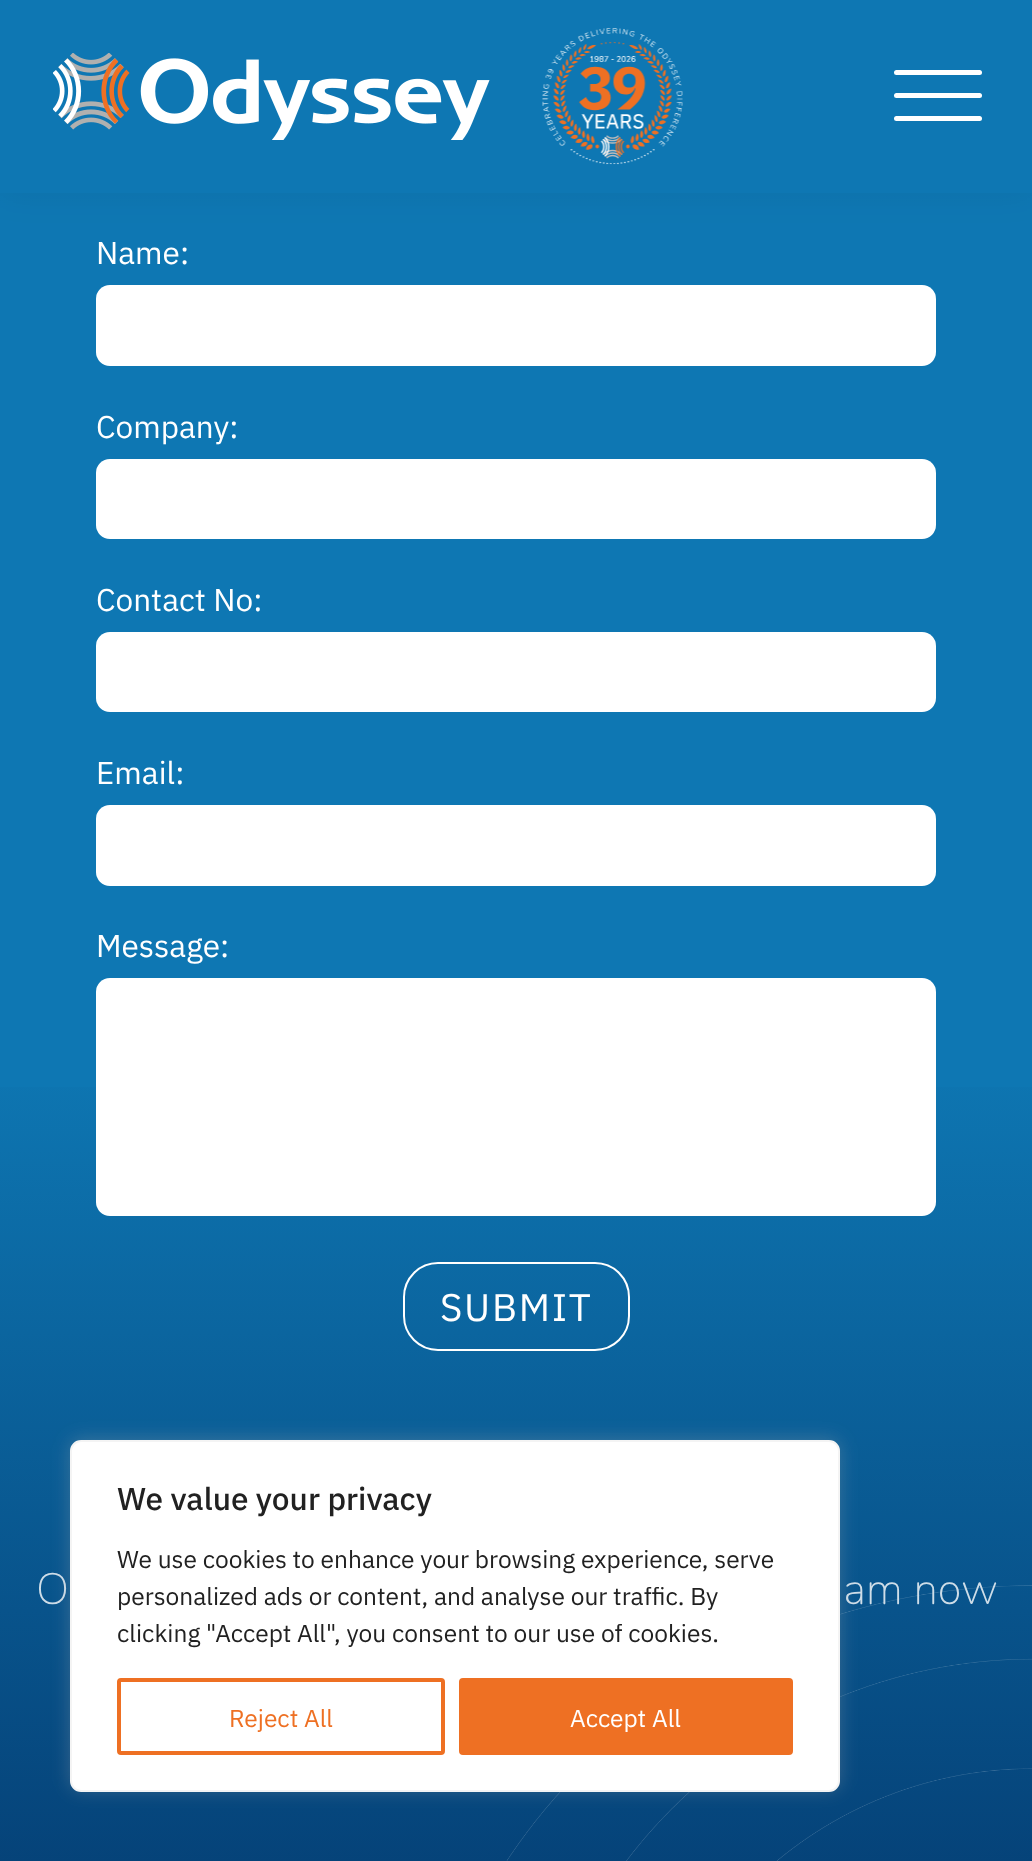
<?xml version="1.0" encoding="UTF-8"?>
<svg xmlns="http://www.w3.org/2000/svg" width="1032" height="1861">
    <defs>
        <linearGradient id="g1" gradientUnits="userSpaceOnUse" x1="516" y1="-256" x2="516" y2="210"><stop offset="0" stop-color="#0E77B3" stop-opacity="0"/><stop offset="1" stop-color="#0E77B3"/></linearGradient>
        <filter id="blur1" x="-50%" y="-200%" width="200%" height="500%"><feGaussianBlur stdDeviation="17.5"/></filter>
        <linearGradient id="g2" gradientUnits="userSpaceOnUse" x1="516" y1="1052" x2="516" y2="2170"><stop offset="0" stop-color="#0E77B3"/><stop offset="1" stop-color="#022F63"/></linearGradient>
        <filter id="blur2" x="-50%" y="-200%" width="200%" height="500%"><feGaussianBlur stdDeviation="9"/></filter>
    </defs>
    <rect width="100%" height="100%" fill="#0E77B3"/>
    <image x="0" y="193" width="1032" height="14" href="img_04.png"/>
    <rect x="0" y="193" width="1032" height="14" fill="url(#g1)"/>
    <rect x="0" y="0" width="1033" height="193" fill="#000000" fill-opacity="0.06" filter="url(#blur1)"/>
    <rect x="0" y="0" width="1032" height="193" fill="#0E77B3"/>
    <image x="53" y="53" width="437" height="87" href="img_01.png"/>
    <image x="542" y="28" width="141" height="137" href="img_02.png"/>
    <rect x="894" y="70" width="88" height="5" rx="2.5" fill="#FFFFFF"/>
    <rect x="894" y="93" width="88" height="5" rx="2.5" fill="#FFFFFF"/>
    <rect x="894" y="116" width="88" height="5" rx="2.5" fill="#FFFFFF"/>
    <rect x="0" y="1087" width="1032" height="774" fill="url(#g2)"/>
    <image x="506" y="1585" width="526" height="276" href="img_03.png"/>
    <text x="96" y="264" font-family="IBM Plex Sans" font-size="31.5" fill="#FFFFFF">Name:</text>
    <rect x="96" y="285" width="840" height="81" rx="14" fill="#FFFFFF"/>
    <text x="96" y="438" font-family="IBM Plex Sans" font-size="31.5" fill="#FFFFFF">Company:</text>
    <rect x="96" y="459" width="840" height="80" rx="14" fill="#FFFFFF"/>
    <text x="96" y="611" font-family="IBM Plex Sans" font-size="31.5" fill="#FFFFFF">Contact No:</text>
    <rect x="96" y="632" width="840" height="80" rx="14" fill="#FFFFFF"/>
    <text x="96" y="784" font-family="IBM Plex Sans" font-size="31.5" fill="#FFFFFF">Email:</text>
    <rect x="96" y="805" width="840" height="81" rx="14" fill="#FFFFFF"/>
    <text x="96" y="957" font-family="IBM Plex Sans" font-size="31.5" fill="#FFFFFF">Message:</text>
    <rect x="96" y="978" width="840" height="238" rx="14" fill="#FFFFFF"/>
    <rect x="404" y="1263" width="225" height="87" rx="34" fill="none" stroke="#FFFFFF" stroke-width="2"/>
    <text x="440" y="1321" font-family="IBM Plex Sans" font-size="38.5" letter-spacing="1.75" fill="#FFFFFF">SUBMIT</text>
    <text x="36" y="1604" font-family="Nunito" font-size="44" font-weight="200" fill="#CEDDE8">O</text>
    <text x="843" y="1604" font-family="Nunito" font-size="44" font-weight="200" fill="#CEDDE8">am now</text>
    <rect x="70" y="1439" width="770" height="351" rx="11" fill="#ACABAB" fill-opacity="0.3" filter="url(#blur2)"/>
    <rect x="71" y="1441" width="768" height="350" rx="10" fill="#FFFFFF" stroke="#F4F4F4" stroke-width="2"/>
    <text x="117" y="1510" font-family="IBM Plex Sans" font-size="31.5" font-weight="500" fill="#212121">We value your privacy</text>
    <text font-family="IBM Plex Sans" font-size="24.5" fill="#212121">
        <tspan x="117" y="1568">We use cookies to enhance your browsing experience, serve</tspan>
        <tspan x="117" y="1605">personalized ads or content, and analyse our traffic. By</tspan>
        <tspan x="117" y="1642">clicking "Accept All", you consent to our use of cookies.</tspan>
    </text>
    <rect x="119" y="1680" width="324" height="73" rx="2" fill="none" stroke="#EE7023" stroke-width="4"/>
    <text x="229" y="1727" font-family="IBM Plex Sans" font-size="24.5" fill="#EE7023">Reject All</text>
    <rect x="461" y="1680" width="330" height="73" rx="2" fill="#EE7023" stroke="#EE7023" stroke-width="4"/>
    <text x="570" y="1727" font-family="IBM Plex Sans" font-size="24.5" fill="#FFFFFF">Accept All</text>
</svg>
